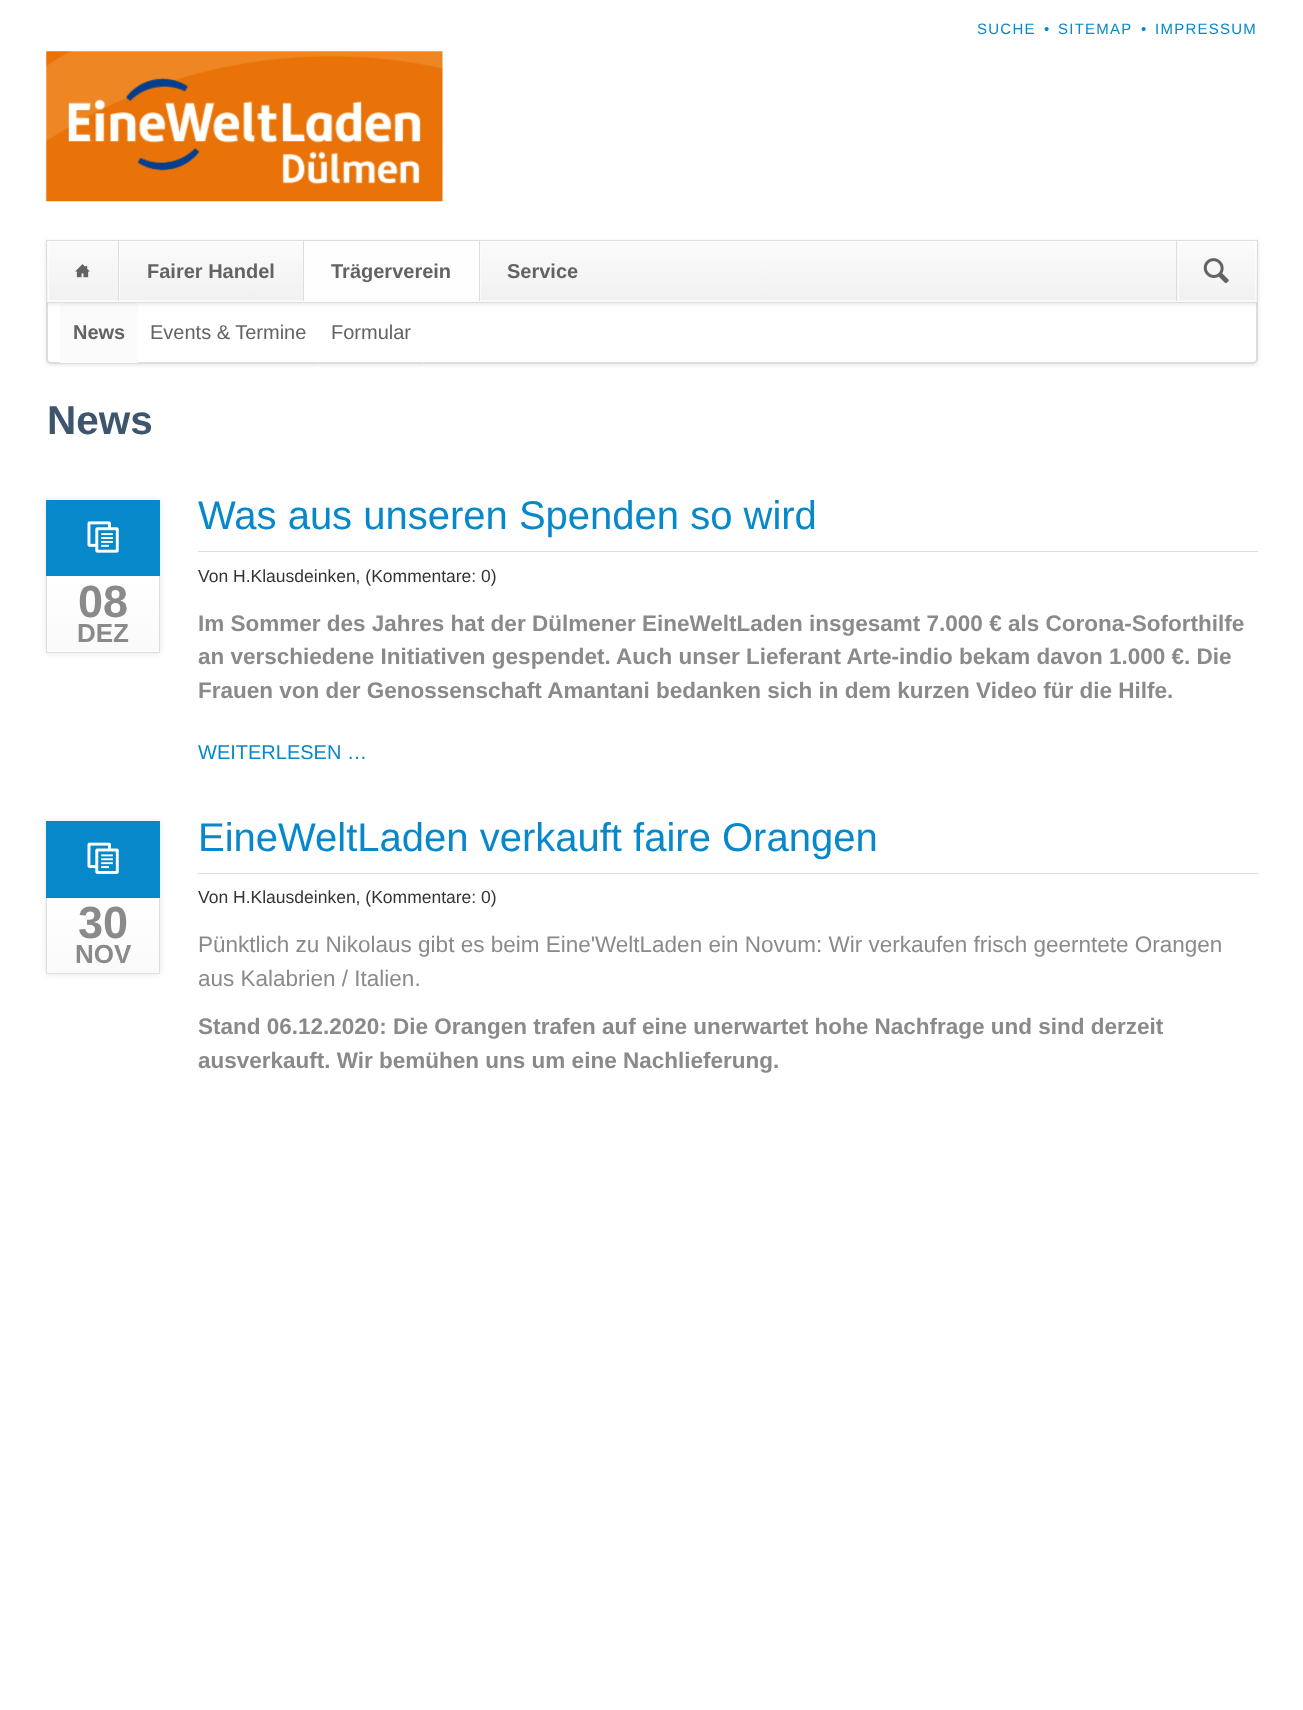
<?xml version="1.0" encoding="UTF-8"?>
<svg xmlns="http://www.w3.org/2000/svg" width="1303" height="1710">
    <defs>
        <clipPath id="clip1"><path d="M 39 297 H 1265 V 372 H 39 Z M 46 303 H 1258 V 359 C 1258 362 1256 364 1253 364 H 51 C 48 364 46 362 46 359 Z" clip-rule="evenodd"/></clipPath>
        <filter id="blur1" x="-50%" y="-200%" width="200%" height="500%"><feGaussianBlur stdDeviation="2"/></filter>
        <linearGradient id="g1" gradientUnits="userSpaceOnUse" x1="652" y1="241" x2="652" y2="301"><stop offset="0" stop-color="#FBFBFB"/><stop offset="1" stop-color="#F1F1F1"/></linearGradient>
        <linearGradient id="g2" gradientUnits="userSpaceOnUse" x1="652" y1="301" x2="652" y2="361"><stop offset="0" stop-color="#FBFBFB"/><stop offset="1" stop-color="#F1F1F1"/></linearGradient>
        <linearGradient id="g3" gradientUnits="userSpaceOnUse" x1="1217" y1="241" x2="1217" y2="301"><stop offset="0" stop-color="#FBFBFB"/><stop offset="1" stop-color="#F1F1F1"/></linearGradient>
        <filter id="blur2" x="-50%" y="-200%" width="200%" height="500%"><feGaussianBlur stdDeviation="3"/></filter>
        <linearGradient id="g4" gradientUnits="userSpaceOnUse" x1="103" y1="501" x2="103" y2="651"><stop offset="0.5" stop-color="#FFFFFF"/><stop offset="1" stop-color="#FAFAFA"/></linearGradient>
        <linearGradient id="g5" gradientUnits="userSpaceOnUse" x1="103" y1="823" x2="103" y2="973"><stop offset="0.5" stop-color="#FFFFFF"/><stop offset="1" stop-color="#FAFAFA"/></linearGradient>
    </defs>
    <rect width="100%" height="100%" fill="#FFFFFF"/>
    <text x="977" y="34" font-family="Liberation Sans" font-size="15" letter-spacing="1.25" fill="#0788CA">SUCHE</text>
    <text x="1044" y="34" font-family="Liberation Sans" font-size="15" letter-spacing="1.25" fill="#0788CA">•</text>
    <text x="1058" y="34" font-family="Liberation Sans" font-size="15" letter-spacing="1.25" fill="#0788CA">SITEMAP</text>
    <text x="1141" y="34" font-family="Liberation Sans" font-size="15" letter-spacing="1.25" fill="#0788CA">•</text>
    <text x="1155" y="34" font-family="Liberation Sans" font-size="15" letter-spacing="1.25" fill="#0788CA">IMPRESSUM</text>
    <image x="46" y="51" width="397" height="151" href="img_01.png"/>
    <g clip-path="url(#clip1)">
        <rect x="46" y="304" width="1212" height="61" rx="5" fill="#000000" fill-opacity="0.1" filter="url(#blur1)"/>
    </g>
    <path d="M 46 302 H 1258 V 359 C 1258 362 1255 364 1252 364 H 51 C 48 364 46 362 46 359 Z M 48 302 H 1256 V 359 C 1256 361 1255 362 1252 362 H 51 C 49 362 48 361 48 359 Z" fill="#DEDEDE" fill-rule="evenodd"/>
    <rect x="60" y="303" width="78" height="60" fill="#FBFBFB"/>
    <rect x="46" y="241" width="1212" height="63" fill="#000000" fill-opacity="0.1" filter="url(#blur1)"/>
    <rect x="47" y="241" width="1210" height="60" fill="url(#g1)"/>
    <rect x="46" y="301" width="1212" height="1" fill="url(#g2)"/>
    <rect x="48.5" y="241.5" width="1207" height="59" fill="none" stroke="#FFFFFF" stroke-opacity="0.5"/>
    <rect x="46.5" y="240.5" width="1211" height="62" fill="none" stroke="#DEDEDE"/>
    <rect x="48" y="280" width="1" height="21" fill="#FFFFFF" fill-opacity="0.5"/>
    <image x="75" y="264" width="15" height="14" href="img_02.png"/>
    <rect x="119" y="250" width="1" height="51" fill="#FFFFFF" fill-opacity="0.5"/>
    <rect x="118" y="241" width="1" height="60" fill="#DEDEDE"/>
    <text x="147" y="278" font-family="Liberation Sans" font-size="20" font-weight="700" fill="#636363">Fairer Handel</text>
    <rect x="304" y="242" width="175" height="59" fill="#FEFEFE"/>
    <rect x="303" y="241" width="1" height="60" fill="#DEDEDE"/>
    <text x="331" y="278" font-family="Liberation Sans" font-size="20" font-weight="700" fill="#636363">Trägerverein</text>
    <rect x="480" y="250" width="1" height="51" fill="#FFFFFF" fill-opacity="0.5"/>
    <rect x="479" y="241" width="1" height="60" fill="#DEDEDE"/>
    <text x="507" y="278" font-family="Liberation Sans" font-size="20" font-weight="700" fill="#636363">Service</text>
    <rect x="1177" y="250" width="79" height="51" fill="url(#g3)"/>
    <rect x="1178.5" y="241.5" width="77" height="59" fill="none" stroke="#FFFFFF" stroke-opacity="0.5"/>
    <rect x="1178" y="280" width="1" height="21" fill="#FFFFFF" fill-opacity="0.5"/>
    <rect x="1176" y="241" width="1" height="60" fill="#DEDEDE"/>
    <image x="1203" y="258" width="26" height="25" href="img_03.png"/>
    <text x="73" y="339" font-family="Liberation Sans" font-size="20" font-weight="700" fill="#636363">News</text>
    <rect x="318" y="362" width="1" height="1" fill="#FFFFFF" fill-opacity="0.5"/>
    <text x="150" y="339" font-family="Liberation Sans" font-size="20" fill="#636363">Events &amp; Termine</text>
    <rect x="423" y="362" width="1" height="1" fill="#FFFFFF" fill-opacity="0.5"/>
    <text x="331" y="339" font-family="Liberation Sans" font-size="20" fill="#636363">Formular</text>
    <text x="47" y="434" font-family="Liberation Sans" font-size="40.5" font-weight="700" fill="#3D566E">News</text>
    <rect x="198" y="551" width="1060" height="1" fill="#DEDEDE"/>
    <text x="198" y="529" font-family="Liberation Sans" font-size="40" fill="#0788CA">Was aus unseren Spenden so wird</text>
    <text x="198" y="582" font-family="Liberation Sans" font-size="17.5" fill="#343434">Von H.Klausdeinken, (Kommentare: 0)</text>
    <rect x="46" y="500" width="114" height="153" fill="#000000" fill-opacity="0.1" filter="url(#blur2)"/>
    <rect x="47" y="651" width="112" height="1" fill="#FFFFFF"/>
    <rect x="47" y="576" width="112" height="75" fill="url(#g4)"/>
    <rect x="46.5" y="500.5" width="113" height="152" fill="none" stroke="#DEDEDE"/>
    <rect x="46" y="500" width="114" height="76" fill="#0788CA"/>
    <image x="87" y="521" width="32" height="32" href="img_04.png"/>
    <text x="78" y="617" font-family="Liberation Sans" font-size="45" font-weight="700" fill="#8A8A8A">08</text>
    <text x="77" y="642" font-family="Liberation Sans" font-size="26" font-weight="700" fill="#8A8A8A">DEZ</text>
    <text font-family="Liberation Sans" font-size="22.5" font-weight="700" fill="#8A8A8A">
        <tspan x="198" y="631">Im Sommer des Jahres hat der Dülmener EineWeltLaden insgesamt 7.000 € als Corona-Soforthilfe</tspan>
        <tspan x="198" y="664">an verschiedene Initiativen gespendet. Auch unser Lieferant Arte-indio bekam davon 1.000 €. Die</tspan>
        <tspan x="198" y="698">Frauen von der Genossenschaft Amantani bedanken sich in dem kurzen Video für die Hilfe.</tspan>
    </text>
    <text x="198" y="759" font-family="Liberation Sans" font-size="20" fill="#0788CA">WEITERLESEN …</text>
    <rect x="198" y="873" width="1060" height="1" fill="#DEDEDE"/>
    <text x="198" y="851" font-family="Liberation Sans" font-size="40" fill="#0788CA">EineWeltLaden verkauft faire Orangen</text>
    <text x="198" y="903" font-family="Liberation Sans" font-size="17.5" fill="#343434">Von H.Klausdeinken, (Kommentare: 0)</text>
    <rect x="46" y="821" width="114" height="153" fill="#000000" fill-opacity="0.1" filter="url(#blur2)"/>
    <rect x="47" y="898" width="112" height="75" fill="url(#g5)"/>
    <rect x="46.5" y="821.5" width="113" height="152" fill="none" stroke="#DEDEDE"/>
    <rect x="46" y="821" width="114" height="77" fill="#0788CA"/>
    <image x="87" y="842" width="32" height="32" href="img_05.png"/>
    <text x="78" y="938" font-family="Liberation Sans" font-size="45" font-weight="700" fill="#8A8A8A">30</text>
    <text x="75" y="963" font-family="Liberation Sans" font-size="26" font-weight="700" fill="#8A8A8A">NOV</text>
    <text font-family="Liberation Sans" font-size="22.5" fill="#8A8A8A">
        <tspan x="198" y="952">Pünktlich zu Nikolaus gibt es beim Eine'WeltLaden ein Novum: Wir verkaufen frisch geerntete Orangen</tspan>
        <tspan x="198" y="986">aus Kalabrien / Italien.</tspan>
    </text>
    <text font-family="Liberation Sans" font-size="22.5" font-weight="700" fill="#8A8A8A">
        <tspan x="198" y="1034">Stand 06.12.2020: Die Orangen trafen auf eine unerwartet hohe Nachfrage und sind derzeit</tspan>
        <tspan x="198" y="1068">ausverkauft. Wir bemühen uns um eine Nachlieferung.</tspan>
    </text>
</svg>
